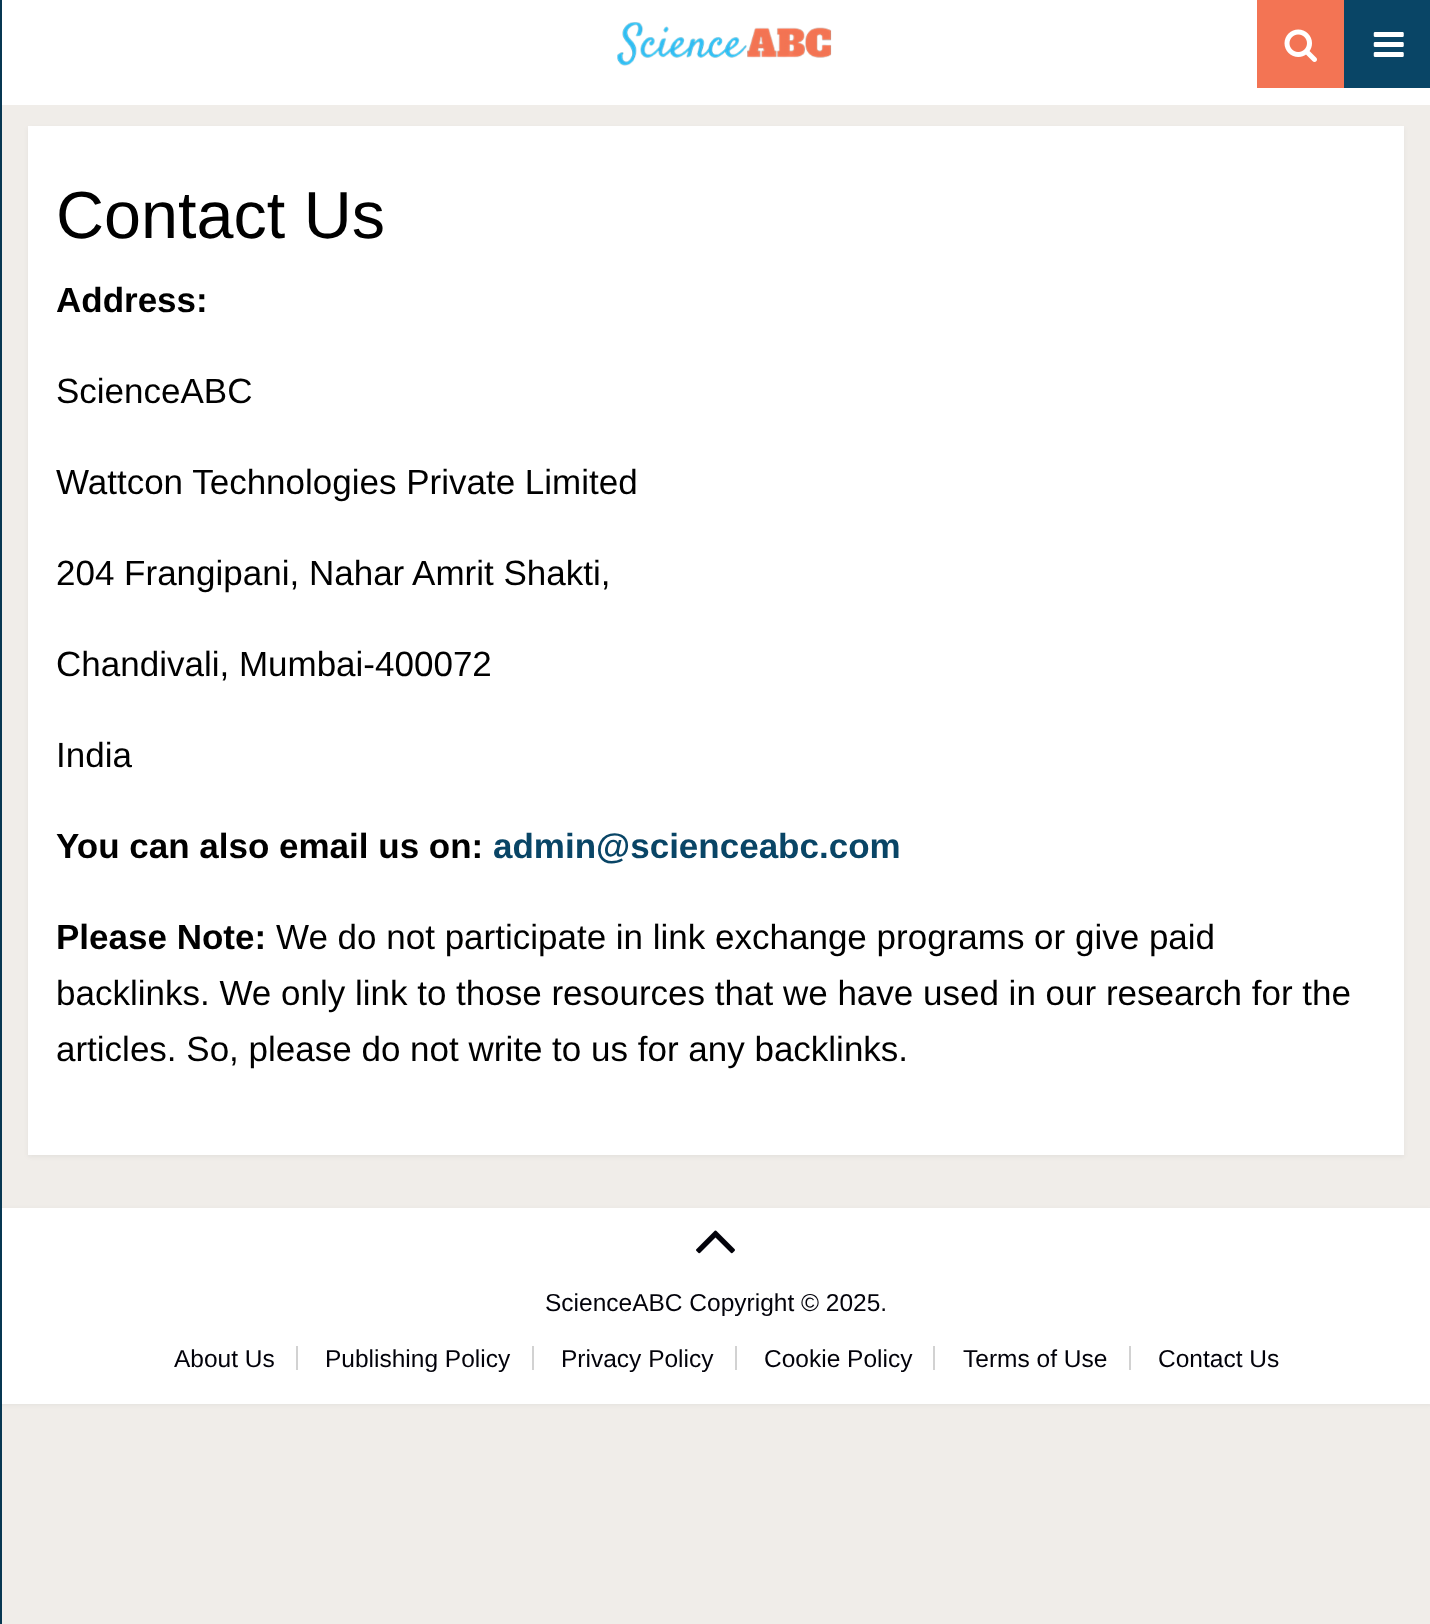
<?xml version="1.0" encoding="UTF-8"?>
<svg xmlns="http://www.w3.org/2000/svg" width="1430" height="1624">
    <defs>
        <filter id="blur1" x="-50%" y="-200%" width="200%" height="500%"><feGaussianBlur stdDeviation="2"/></filter>
    </defs>
    <rect width="100%" height="100%" fill="#F0EDE9"/>
    <rect x="2" y="0" width="1428" height="105" fill="#FFFFFF"/>
    <rect x="1344" y="0" width="86" height="88" fill="#094566"/>
    <rect x="0" y="1209" width="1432" height="196" fill="#000000" fill-opacity="0.05" filter="url(#blur1)"/>
    <rect x="0" y="0" width="2" height="1624" fill="#073752"/>
    <image x="1373" y="32" width="31" height="25" href="img_01.png"/>
    <image x="617" y="22" width="215" height="44" href="img_02.png"/>
    <rect x="1257" y="0" width="87" height="88" fill="#F37454"/>
    <image x="1284" y="29" width="33" height="33" href="img_03.png"/>
    <rect x="28" y="128" width="1376" height="1029" fill="#000000" fill-opacity="0.05" filter="url(#blur1)"/>
    <rect x="28" y="126" width="1376" height="1029" fill="#FFFFFF"/>
    <text x="56" y="238" font-family="Liberation Sans" font-size="66.5" fill="#000000">Contact Us</text>
    <text x="56" y="312" font-family="Liberation Sans" font-size="35" font-weight="700" fill="#000000">Address:</text>
    <text x="56" y="403" font-family="Liberation Sans" font-size="35" fill="#000000">ScienceABC</text>
    <text x="56" y="494" font-family="Liberation Sans" font-size="35" fill="#000000">Wattcon Technologies Private Limited</text>
    <text x="56" y="585" font-family="Liberation Sans" font-size="35" fill="#000000">204 Frangipani, Nahar Amrit Shakti,</text>
    <text x="56" y="676" font-family="Liberation Sans" font-size="35" fill="#000000">Chandivali, Mumbai-400072</text>
    <text x="56" y="767" font-family="Liberation Sans" font-size="35" fill="#000000">India</text>
    <text x="56" y="858" font-family="Liberation Sans" font-size="35" font-weight="700" fill="#000000">You can also email us on:</text>
    <text x="493" y="858" font-family="Liberation Sans" font-size="35" font-weight="700" fill="#094566">admin@scienceabc.com</text>
    <text x="56" y="949" font-family="Liberation Sans" font-size="35" font-weight="700" fill="#000000">Please Note:</text>
    <text x="276" y="949" font-family="Liberation Sans" font-size="35" fill="#000000">We do not participate in link exchange programs or give paid</text>
    <text font-family="Liberation Sans" font-size="35" fill="#000000">
        <tspan x="56" y="1005">backlinks. We only link to those resources that we have used in our research for the</tspan>
        <tspan x="56" y="1061">articles. So, please do not write to us for any backlinks.</tspan>
    </text>
    <rect x="2" y="1208" width="1428" height="196" fill="#FFFFFF"/>
    <image x="696" y="1230" width="39" height="24" href="img_04.png"/>
    <text x="545" y="1311" font-family="Liberation Sans" font-size="24.5" fill="#02020A">ScienceABC Copyright © 2025.</text>
    <rect x="296" y="1346" width="2" height="24" fill="#D2D2D2"/>
    <text x="174" y="1367" font-family="Liberation Sans" font-size="24.5" fill="#02020A">About Us</text>
    <rect x="532" y="1346" width="2" height="24" fill="#D2D2D2"/>
    <text x="325" y="1367" font-family="Liberation Sans" font-size="24.5" fill="#02020A">Publishing Policy</text>
    <rect x="735" y="1346" width="2" height="24" fill="#D2D2D2"/>
    <text x="561" y="1367" font-family="Liberation Sans" font-size="24.5" fill="#02020A">Privacy Policy</text>
    <rect x="933" y="1346" width="2" height="24" fill="#D2D2D2"/>
    <text x="764" y="1367" font-family="Liberation Sans" font-size="24.5" fill="#02020A">Cookie Policy</text>
    <rect x="1129" y="1346" width="2" height="24" fill="#D2D2D2"/>
    <text x="963" y="1367" font-family="Liberation Sans" font-size="24.5" fill="#02020A">Terms of Use</text>
    <text x="1158" y="1367" font-family="Liberation Sans" font-size="24.5" fill="#02020A">Contact Us</text>
</svg>
